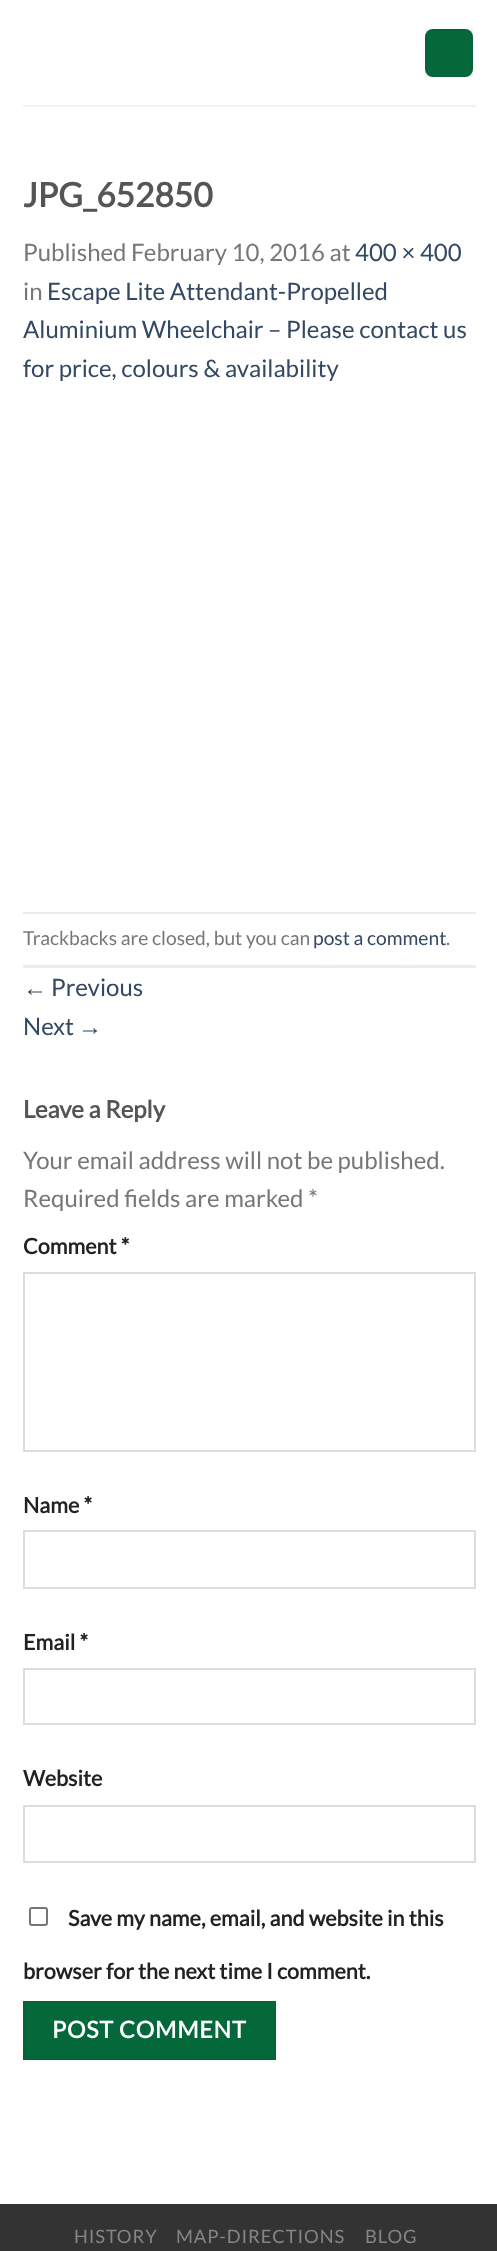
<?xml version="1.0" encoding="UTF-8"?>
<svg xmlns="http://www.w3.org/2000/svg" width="497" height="2251">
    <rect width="100%" height="100%" fill="#FFFFFF"/>
    <rect x="425" y="29" width="48" height="48" rx="8" fill="#04683A"/>
    <rect x="426" y="30" width="46" height="46" fill="none" stroke="#000000" stroke-opacity="0.05" stroke-width="2"/>
    <rect x="23" y="105" width="453" height="2" fill="#F1F1F1"/>
    <text x="23" y="207" font-family="Lato" font-size="33.5" font-weight="700" fill="#555555">JPG_652850</text>
    <text x="23" y="261" font-family="Lato" font-size="24" fill="#777777">Published February 10, 2016 at</text>
    <text x="355" y="261" font-family="Lato" font-size="24" fill="#334862">400 × 400</text>
    <text x="23" y="300" font-family="Lato" font-size="24" fill="#777777">in</text>
    <text x="47" y="300" font-family="Lato" font-size="24" fill="#334862">Escape Lite Attendant-Propelled</text>
    <text font-family="Lato" font-size="24" fill="#334862">
        <tspan x="23" y="338">Aluminium Wheelchair – Please contact us</tspan>
        <tspan x="23" y="377">for price, colours &amp; availability</tspan>
    </text>
    <rect x="23" y="912" width="453" height="2" fill="#ECECEC"/>
    <rect x="23" y="965" width="453" height="3" fill="#ECECEC"/>
    <text x="23" y="945" font-family="Lato" font-size="19.25" fill="#777777">Trackbacks are closed, but you can</text>
    <text x="313" y="945" font-family="Lato" font-size="19.25" fill="#334862">post a comment</text>
    <text x="446" y="945" font-family="Lato" font-size="19.25" fill="#777777">.</text>
    <text x="23" y="996" font-family="Liberation Sans" font-size="24" fill="#334862">←</text>
    <text x="51" y="996" font-family="Lato" font-size="24" fill="#334862">Previous</text>
    <text x="23" y="1035" font-family="Lato" font-size="24" fill="#334862">Next</text>
    <text x="78" y="1035" font-family="Liberation Sans" font-size="24" fill="#334862">→</text>
    <text x="23" y="1118" font-family="Lato" font-size="24" font-weight="700" fill="#555555">Leave a Reply</text>
    <text font-family="Lato" font-size="24" fill="#777777">
        <tspan x="23" y="1169">Your email address will not be published.</tspan>
        <tspan x="23" y="1207">Required fields are marked *</tspan>
    </text>
    <text x="23" y="1254" font-family="Lato" font-size="21.6" font-weight="700" fill="#222222">Comment *</text>
    <rect x="24" y="1273" width="451" height="178" fill="none" stroke="#DDDDDD" stroke-width="2"/>
    <text x="23" y="1513" font-family="Lato" font-size="21.6" font-weight="700" fill="#222222">Name *</text>
    <rect x="24" y="1531" width="451" height="57" fill="none" stroke="#DDDDDD" stroke-width="2"/>
    <text x="23" y="1650" font-family="Lato" font-size="21.6" font-weight="700" fill="#222222">Email *</text>
    <rect x="24" y="1669" width="451" height="55" fill="none" stroke="#DDDDDD" stroke-width="2"/>
    <text x="23" y="1786" font-family="Lato" font-size="21.6" font-weight="700" fill="#222222">Website</text>
    <rect x="24" y="1806" width="451" height="56" fill="none" stroke="#DDDDDD" stroke-width="2"/>
    <rect x="30" y="1908" width="17" height="17" rx="2" fill="none" stroke="#767676" stroke-width="2"/>
    <text x="68" y="1926" font-family="Lato" font-size="21.6" font-weight="700" fill="#222222">Save my name, email, and website in this</text>
    <text x="23" y="1979" font-family="Lato" font-size="21.6" font-weight="700" fill="#222222">browser for the next time I comment.</text>
    <rect x="24" y="2002" width="251" height="57" fill="#04683A" stroke="#046337" stroke-width="2"/>
    <text x="52" y="2038" font-family="Lato" font-size="23.25" font-weight="700" letter-spacing="0.75" fill="#FFFFFF">POST COMMENT</text>
    <rect x="0" y="2204" width="497" height="47" fill="#333333"/>
    <text x="74" y="2243" font-family="Lato" font-size="18.4" letter-spacing="0.9" fill="#858585">HISTORY</text>
    <text x="176" y="2243" font-family="Lato" font-size="18.4" letter-spacing="0.9" fill="#858585">MAP-DIRECTIONS</text>
    <text x="365" y="2243" font-family="Lato" font-size="18.4" letter-spacing="0.9" fill="#858585">BLOG</text>
</svg>
